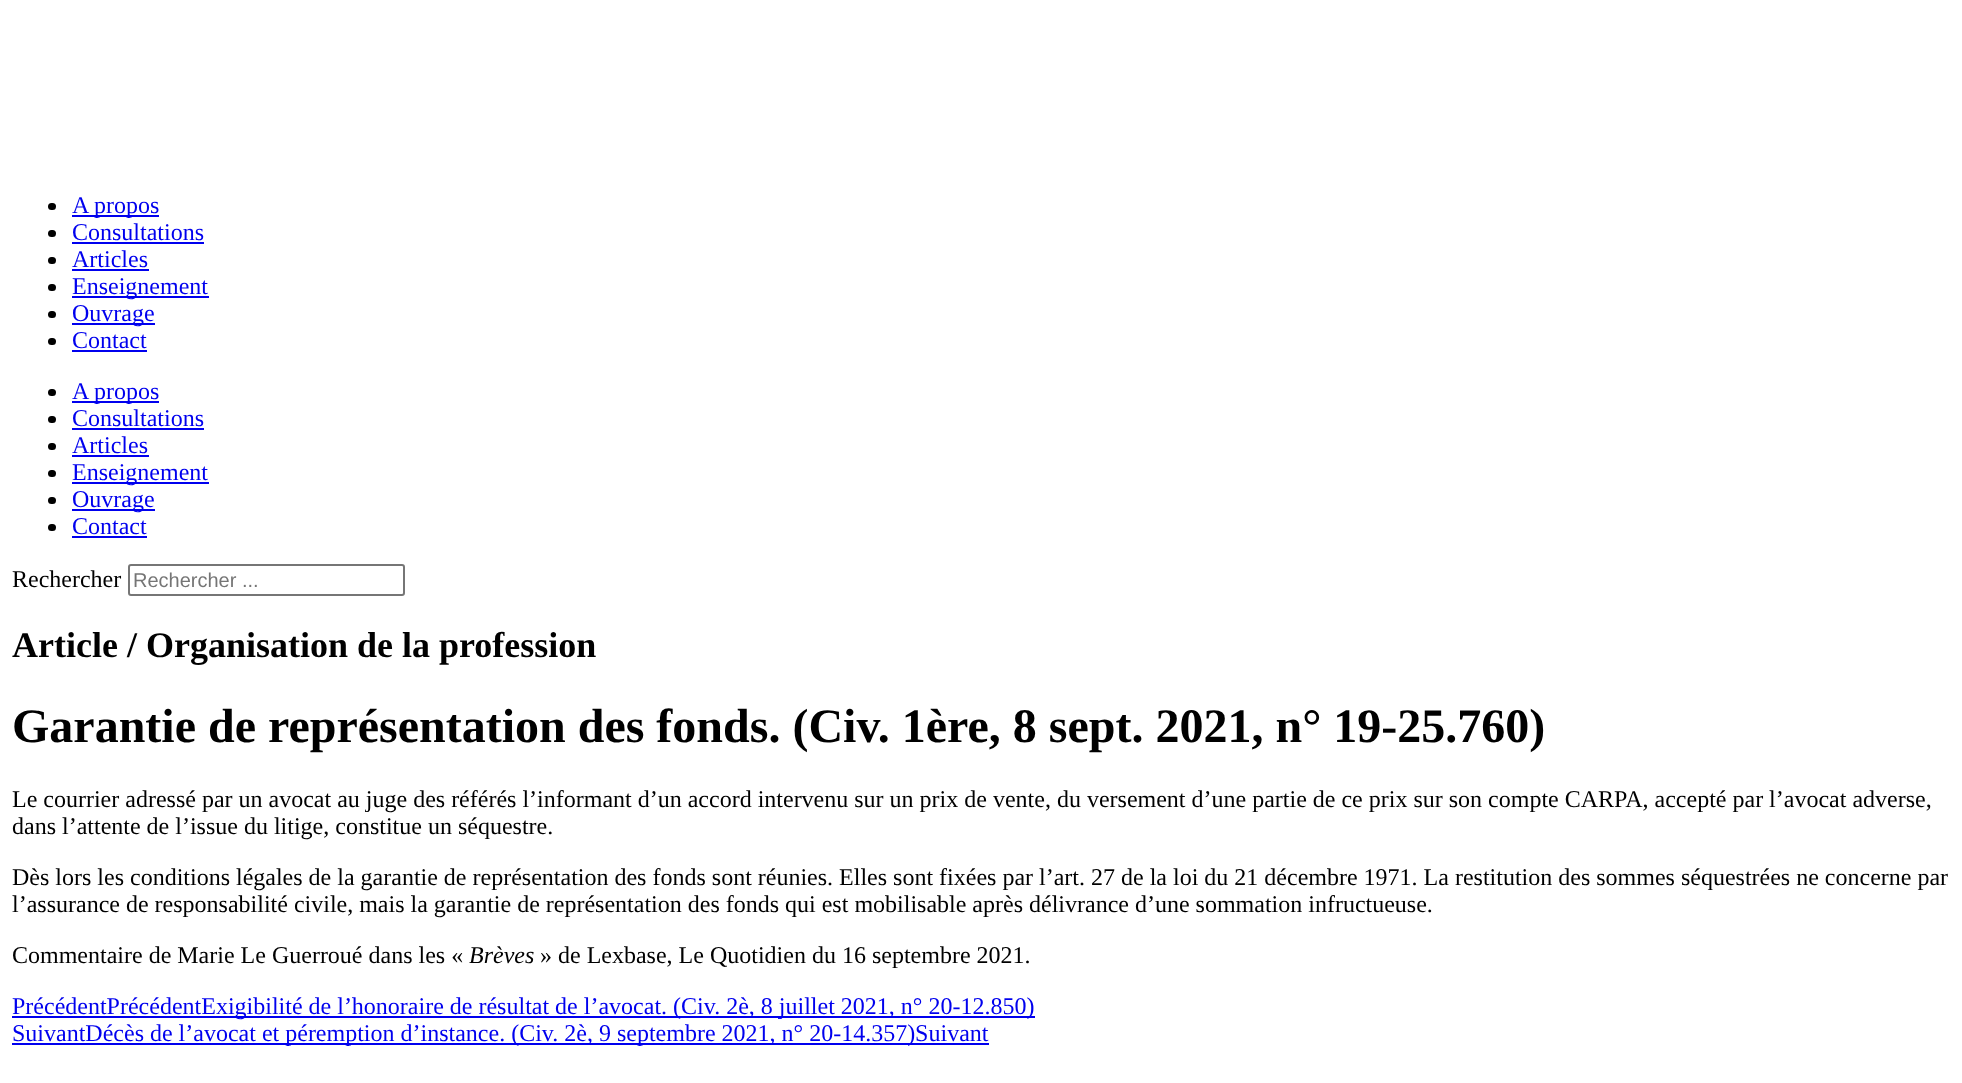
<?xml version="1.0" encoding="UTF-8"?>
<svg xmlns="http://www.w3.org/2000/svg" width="1962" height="1083">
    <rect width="100%" height="100%" fill="#FFFFFF"/>
    <rect x="48" y="203" width="8" height="7" rx="3.5" fill="#000000"/>
    <rect x="72" y="215" width="87" height="2" fill="#0000EE"/>
    <text x="72" y="213" font-family="Liberation Serif" font-size="24" fill="#0000EE">A propos</text>
    <rect x="48" y="230" width="8" height="7" rx="3.5" fill="#000000"/>
    <text x="72" y="240" font-family="Liberation Serif" font-size="24" fill="#0000EE">Consultations</text>
    <rect x="72" y="242" width="132" height="2" fill="#0000EE"/>
    <rect x="48" y="257" width="8" height="7" rx="3.5" fill="#000000"/>
    <text x="72" y="267" font-family="Liberation Serif" font-size="24" fill="#0000EE">Articles</text>
    <rect x="72" y="269" width="77" height="2" fill="#0000EE"/>
    <rect x="48" y="284" width="8" height="7" rx="3.5" fill="#000000"/>
    <rect x="72" y="296" width="137" height="2" fill="#0000EE"/>
    <text x="72" y="294" font-family="Liberation Serif" font-size="24" fill="#0000EE">Enseignement</text>
    <rect x="48" y="311" width="8" height="7" rx="3.5" fill="#000000"/>
    <rect x="72" y="323" width="83" height="2" fill="#0000EE"/>
    <text x="72" y="321" font-family="Liberation Serif" font-size="24" fill="#0000EE">Ouvrage</text>
    <rect x="48" y="338" width="8" height="7" rx="3.5" fill="#000000"/>
    <text x="72" y="348" font-family="Liberation Serif" font-size="24" fill="#0000EE">Contact</text>
    <rect x="72" y="350" width="75" height="2" fill="#0000EE"/>
    <rect x="48" y="389" width="8" height="7" rx="3.5" fill="#000000"/>
    <rect x="72" y="401" width="87" height="2" fill="#0000EE"/>
    <text x="72" y="399" font-family="Liberation Serif" font-size="24" fill="#0000EE">A propos</text>
    <rect x="48" y="416" width="8" height="7" rx="3.5" fill="#000000"/>
    <text x="72" y="426" font-family="Liberation Serif" font-size="24" fill="#0000EE">Consultations</text>
    <rect x="72" y="428" width="132" height="2" fill="#0000EE"/>
    <rect x="48" y="443" width="8" height="7" rx="3.5" fill="#000000"/>
    <text x="72" y="453" font-family="Liberation Serif" font-size="24" fill="#0000EE">Articles</text>
    <rect x="72" y="455" width="77" height="2" fill="#0000EE"/>
    <rect x="48" y="470" width="8" height="7" rx="3.5" fill="#000000"/>
    <rect x="72" y="482" width="137" height="2" fill="#0000EE"/>
    <text x="72" y="480" font-family="Liberation Serif" font-size="24" fill="#0000EE">Enseignement</text>
    <rect x="48" y="497" width="8" height="7" rx="3.5" fill="#000000"/>
    <rect x="72" y="509" width="83" height="2" fill="#0000EE"/>
    <text x="72" y="507" font-family="Liberation Serif" font-size="24" fill="#0000EE">Ouvrage</text>
    <rect x="48" y="524" width="8" height="7" rx="3.5" fill="#000000"/>
    <text x="72" y="534" font-family="Liberation Serif" font-size="24" fill="#0000EE">Contact</text>
    <rect x="72" y="536" width="75" height="2" fill="#0000EE"/>
    <text x="12" y="587" font-family="Liberation Serif" font-size="24" fill="#000000">Rechercher</text>
    <rect x="129" y="565" width="275" height="30" rx="2" fill="none" stroke="#767676" stroke-width="2"/>
    <text x="133" y="587" font-family="Liberation Sans" font-size="20" fill="#757575">Rechercher ...</text>
    <text x="12" y="657" font-family="Liberation Serif" font-size="36" font-weight="700" fill="#000000">Article / Organisation de la profession</text>
    <text x="12" y="742" font-family="Liberation Serif" font-size="48" font-weight="700" fill="#000000">Garantie de représentation des fonds. (Civ. 1ère, 8 sept. 2021, n° 19-25.760)</text>
    <text font-family="Liberation Serif" font-size="24" fill="#000000">
        <tspan x="12" y="807">Le courrier adressé par un avocat au juge des référés l’informant d’un accord intervenu sur un prix de vente, du versement d’une partie de ce prix sur son compte CARPA, accepté par l’avocat adverse,</tspan>
        <tspan x="12" y="834">dans l’attente de l’issue du litige, constitue un séquestre.</tspan>
    </text>
    <text font-family="Liberation Serif" font-size="24" fill="#000000">
        <tspan x="12" y="885">Dès lors les conditions légales de la garantie de représentation des fonds sont réunies. Elles sont fixées par l’art. 27 de la loi du 21 décembre 1971. La restitution des sommes séquestrées ne concerne par</tspan>
        <tspan x="12" y="912">l’assurance de responsabilité civile, mais la garantie de représentation des fonds qui est mobilisable après délivrance d’une sommation infructueuse.</tspan>
    </text>
    <text x="12" y="963" font-family="Liberation Serif" font-size="24" fill="#000000">Commentaire de Marie Le Guerroué dans les «</text>
    <text x="469" y="963" font-family="Liberation Serif" font-size="24" font-style="italic" fill="#000000">Brèves</text>
    <text x="540" y="963" font-family="Liberation Serif" font-size="24" fill="#000000">» de Lexbase, Le Quotidien du 16 septembre 2021.</text>
    <rect x="12" y="1016" width="1023" height="2" fill="#0000EE"/>
    <text x="12" y="1014" font-family="Liberation Serif" font-size="24" fill="#0000EE">PrécédentPrécédentExigibilité de l’honoraire de résultat de l’avocat. (Civ. 2è, 8 juillet 2021, n° 20-12.850)</text>
    <rect x="12" y="1043" width="977" height="2" fill="#0000EE"/>
    <text x="12" y="1041" font-family="Liberation Serif" font-size="24" fill="#0000EE">SuivantDécès de l’avocat et péremption d’instance. (Civ. 2è, 9 septembre 2021, n° 20-14.357)Suivant</text>
</svg>
